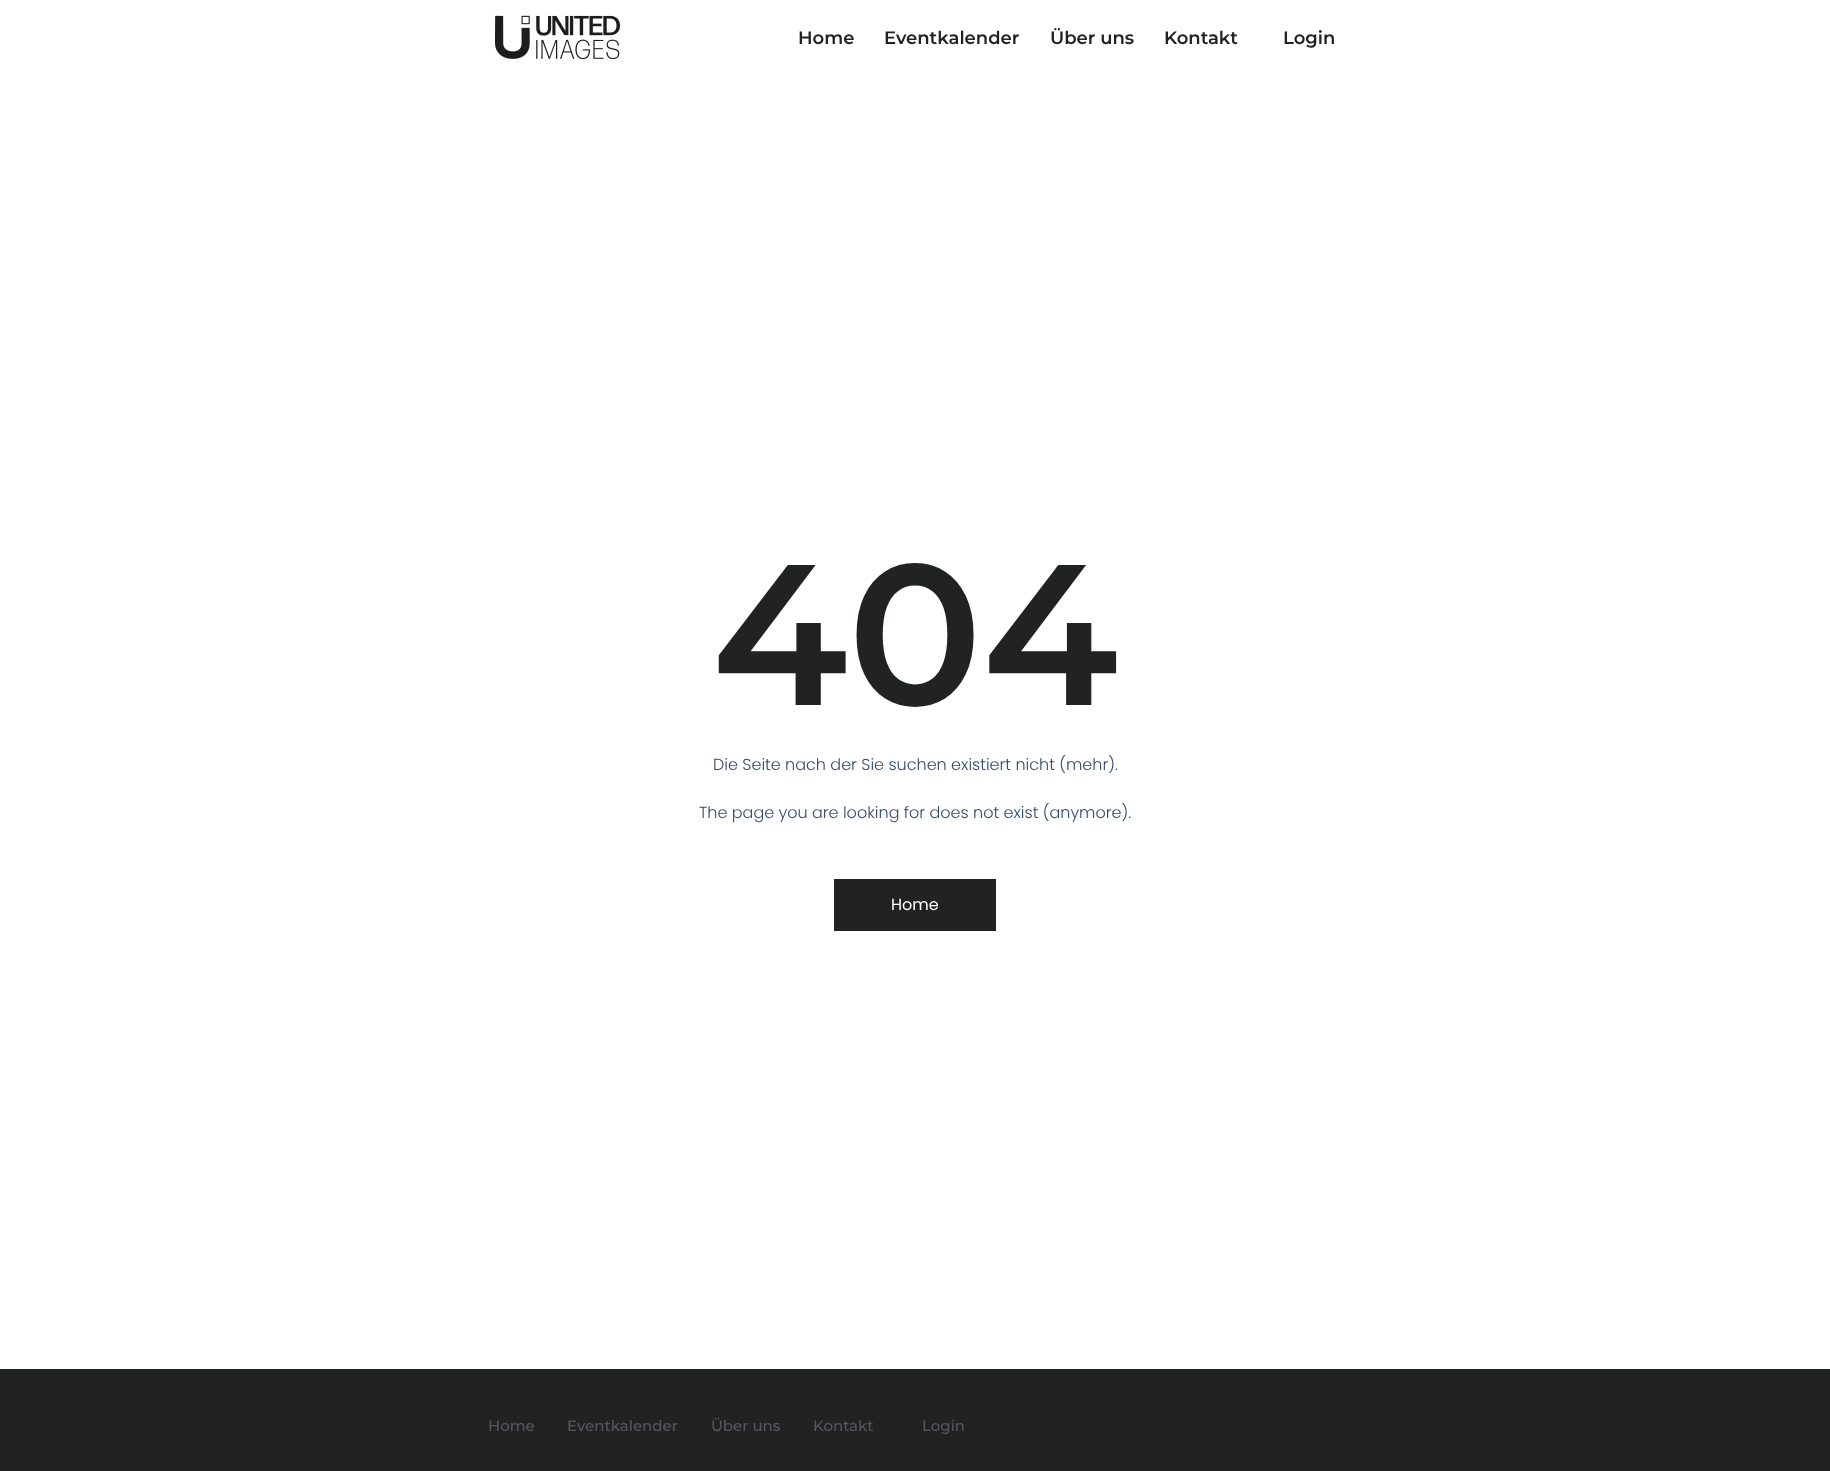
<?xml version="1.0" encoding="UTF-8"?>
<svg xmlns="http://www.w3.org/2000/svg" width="1830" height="1471">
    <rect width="100%" height="100%" fill="#FFFFFF"/>
    <image x="495" y="15" width="125" height="45" href="img_01.png"/>
    <text x="798" y="44" font-family="Montserrat" font-size="18" font-weight="600" fill="#212322">Home</text>
    <text x="884" y="44" font-family="Montserrat" font-size="18" font-weight="600" fill="#212322">Eventkalender</text>
    <text x="1050" y="44" font-family="Montserrat" font-size="18" font-weight="600" fill="#212322">Über uns</text>
    <text x="1164" y="44" font-family="Montserrat" font-size="18" font-weight="600" fill="#212322">Kontakt</text>
    <text x="1283" y="44" font-family="Montserrat" font-size="18" font-weight="600" fill="#212322">Login</text>
    <text x="712" y="705" font-family="Montserrat" font-size="200" font-weight="600" fill="#212322">404</text>
    <text x="713" y="770" font-family="Poppins" font-size="16" font-weight="300" fill="#324A6D">Die Seite nach der Sie suchen existiert nicht (mehr).</text>
    <text x="699" y="818" font-family="Poppins" font-size="16" font-weight="300" fill="#324A6D">The page you are looking for does not exist (anymore).</text>
    <rect x="834" y="879" width="162" height="52" fill="#212322"/>
    <text x="891" y="910" font-family="Poppins" font-size="16" fill="#FFFFFF">Home</text>
    <rect x="0" y="1369" width="1830" height="102" fill="#212322"/>
    <text x="488" y="1431" font-family="Montserrat" font-size="15" font-weight="500" fill="#55595E">Home</text>
    <text x="567" y="1431" font-family="Montserrat" font-size="15" font-weight="500" fill="#55595E">Eventkalender</text>
    <text x="711" y="1431" font-family="Montserrat" font-size="15" font-weight="500" fill="#55595E">Über uns</text>
    <text x="813" y="1431" font-family="Montserrat" font-size="15" font-weight="500" fill="#55595E">Kontakt</text>
    <text x="922" y="1431" font-family="Montserrat" font-size="15" font-weight="500" fill="#55595E">Login</text>
</svg>
